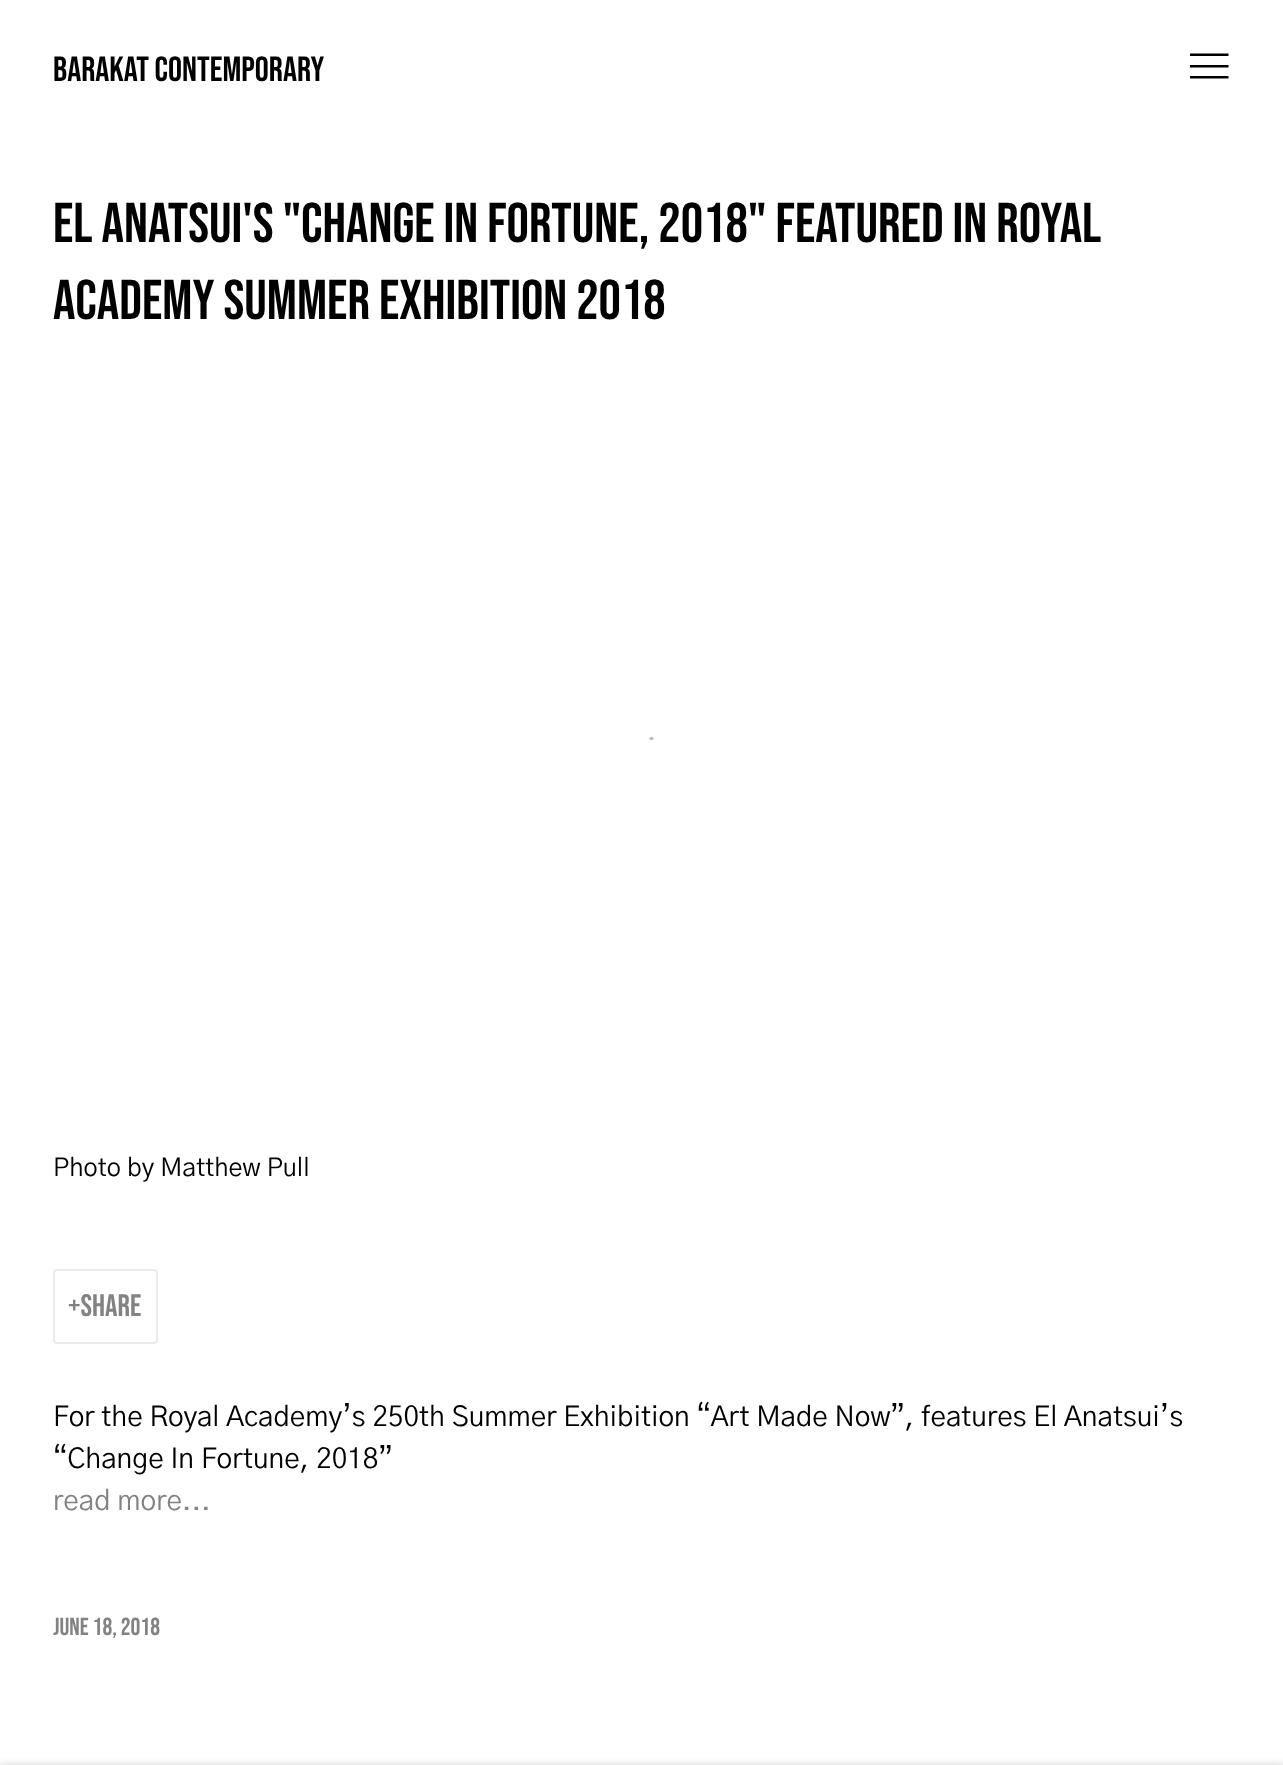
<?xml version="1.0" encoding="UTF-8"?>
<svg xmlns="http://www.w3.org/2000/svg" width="1283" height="1765">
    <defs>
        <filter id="blur1" x="-50%" y="-200%" width="200%" height="500%"><feGaussianBlur stdDeviation="4.5"/></filter>
    </defs>
    <rect width="100%" height="100%" fill="#FFFFFF"/>
    <text x="53" y="81" font-family="Bebas Neue" font-size="35" fill="#000000">Barakat Contemporary</text>
    <path d="M 1190 78.5 V 76 H 1228.5 V 78.5 Z M 1190 67.5 V 65 H 1228.5 V 67.5 Z M 1190 56 V 53.5 H 1228.5 V 56 Z" fill="#000000"/>
    <text font-family="Bebas Neue" font-size="56" fill="#000000">
        <tspan x="53" y="242">El Anatsui's "Change in Fortune, 2018" Featured in Royal</tspan>
        <tspan x="53" y="319">Academy Summer Exhibition 2018</tspan>
    </text>
    <path d="M 651 738.5 H 652" fill="none" stroke="#BBBBBB" stroke-width="3.2" stroke-linecap="round"/>
    <text x="53" y="1176" font-family="'Gothic A1'" font-size="25.25" fill="#000000">Photo by Matthew Pull</text>
    <rect x="54" y="1270" width="103" height="73" rx="3" fill="none" stroke="#EBEBEB" stroke-width="2"/>
    <text x="68" y="1316" font-family="Bebas Neue" font-size="31" fill="#828282">+Share</text>
    <text font-family="'Gothic A1'" font-size="28" fill="#000000">
        <tspan x="53" y="1426">For the Royal Academy’s 250th Summer Exhibition “Art Made Now”, features El Anatsui’s</tspan>
        <tspan x="53" y="1468">“Change In Fortune, 2018”</tspan>
    </text>
    <text x="53" y="1510" font-family="'Gothic A1'" font-size="28" fill="#828282">read more...</text>
    <text x="53" y="1635" font-family="Bebas Neue" font-size="24.5" fill="#828282">June 18, 2018</text>
    <rect x="0" y="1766" width="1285" height="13" fill="#000000" fill-opacity="0.23" filter="url(#blur1)"/>
</svg>
